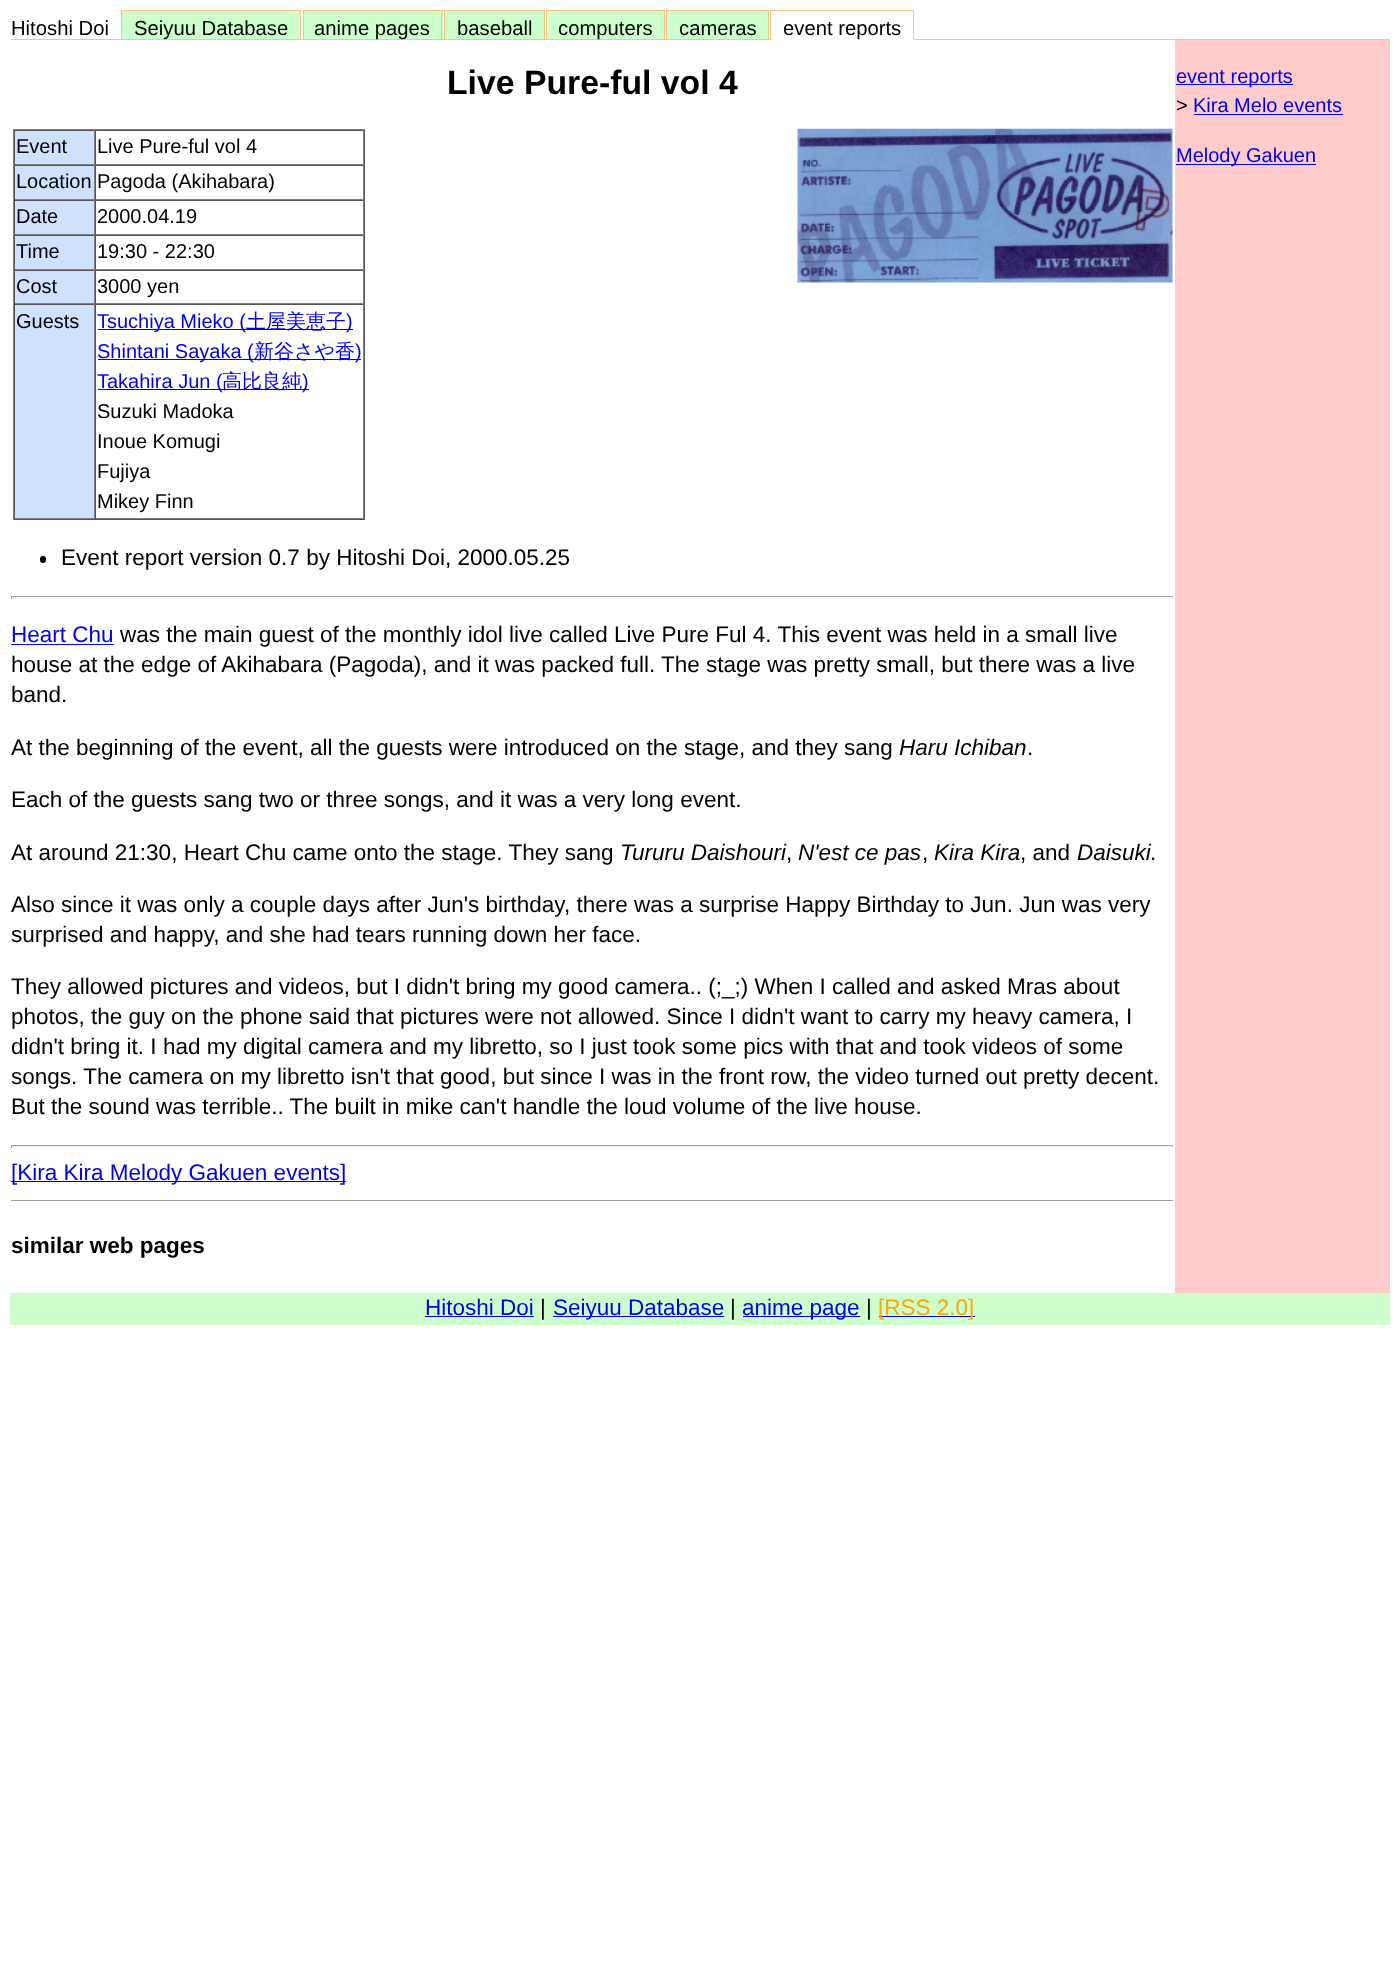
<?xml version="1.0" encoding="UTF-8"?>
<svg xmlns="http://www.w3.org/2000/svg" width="1399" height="1976">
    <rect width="100%" height="100%" fill="#FFFFFF"/>
    <rect x="10" y="39" width="1380" height="1" fill="#FFC080"/>
    <rect x="10" y="39" width="1" height="1" fill="#FFFFFF"/>
    <text x="11" y="35" font-family="Liberation Sans" font-size="20.25" fill="#000000">Hitoshi Doi</text>
    <rect x="122" y="11" width="178" height="28" fill="#CCFFCC"/>
    <rect x="121" y="10" width="180" height="1" fill="#FFC080"/>
    <rect x="300" y="10" width="1" height="29" fill="#FFC080"/>
    <rect x="121" y="10" width="1" height="29" fill="#FFC080"/>
    <text x="134" y="35" font-family="Liberation Sans" font-size="20.25" fill="#000000">Seiyuu Database</text>
    <rect x="304" y="11" width="139" height="28" fill="#CCFFCC"/>
    <rect x="303" y="10" width="140" height="1" fill="#FFC080"/>
    <rect x="441" y="10" width="1" height="29" fill="#FFC080"/>
    <rect x="303" y="10" width="1" height="29" fill="#FFC080"/>
    <text x="314" y="35" font-family="Liberation Sans" font-size="20.25" fill="#000000">anime pages</text>
    <rect x="445" y="11" width="99" height="28" fill="#CCFFCC"/>
    <rect x="444" y="10" width="101" height="1" fill="#FFC080"/>
    <rect x="544" y="10" width="1" height="29" fill="#FFC080"/>
    <rect x="444" y="10" width="1" height="29" fill="#FFC080"/>
    <text x="457" y="35" font-family="Liberation Sans" font-size="20.25" fill="#000000">baseball</text>
    <rect x="547" y="11" width="117" height="28" fill="#CCFFCC"/>
    <rect x="546" y="10" width="119" height="1" fill="#FFC080"/>
    <rect x="664" y="10" width="1" height="29" fill="#FFC080"/>
    <rect x="546" y="10" width="1" height="29" fill="#FFC080"/>
    <text x="558" y="35" font-family="Liberation Sans" font-size="20.25" fill="#000000">computers</text>
    <rect x="667" y="11" width="101" height="28" fill="#CCFFCC"/>
    <rect x="666" y="10" width="103" height="1" fill="#FFC080"/>
    <rect x="768" y="10" width="1" height="29" fill="#FFC080"/>
    <rect x="666" y="10" width="1" height="29" fill="#FFC080"/>
    <text x="679" y="35" font-family="Liberation Sans" font-size="20.25" fill="#000000">cameras</text>
    <rect x="770" y="10" width="144" height="1" fill="#FFC080"/>
    <rect x="913" y="10" width="1" height="30" fill="#FFC080"/>
    <rect x="770" y="39" width="144" height="1" fill="#FFFFFF"/>
    <rect x="770" y="10" width="1" height="30" fill="#FFC080"/>
    <text x="783" y="35" font-family="Liberation Sans" font-size="20.25" fill="#000000">event reports</text>
    <text x="447" y="94" font-family="Liberation Sans" font-size="33.75" font-weight="700" fill="#000000">Live Pure-ful vol 4</text>
    <rect x="13" y="129" width="352" height="1" fill="#808080"/>
    <rect x="364" y="129" width="1" height="391" fill="#555555"/>
    <rect x="13" y="519" width="352" height="1" fill="#555555"/>
    <rect x="13" y="129" width="1" height="391" fill="#808080"/>
    <rect x="15" y="131" width="79" height="33" fill="#D0E0FF"/>
    <rect x="14" y="130" width="350" height="1" fill="#555555"/>
    <rect x="94" y="130" width="1" height="35" fill="#808080"/>
    <rect x="14" y="164" width="81" height="1" fill="#808080"/>
    <rect x="14" y="130" width="1" height="35" fill="#555555"/>
    <text x="16" y="153" font-family="Liberation Sans" font-size="20" fill="#000000">Event</text>
    <rect x="363" y="130" width="1" height="35" fill="#808080"/>
    <rect x="95" y="164" width="269" height="1" fill="#808080"/>
    <rect x="95" y="130" width="1" height="35" fill="#555555"/>
    <text x="97" y="153" font-family="Liberation Sans" font-size="20" fill="#000000">Live Pure-ful vol 4</text>
    <rect x="15" y="166" width="79" height="33" fill="#D0E0FF"/>
    <rect x="14" y="165" width="350" height="1" fill="#555555"/>
    <rect x="94" y="165" width="1" height="35" fill="#808080"/>
    <rect x="14" y="199" width="81" height="1" fill="#808080"/>
    <rect x="14" y="165" width="1" height="35" fill="#555555"/>
    <text x="16" y="188" font-family="Liberation Sans" font-size="20" fill="#000000">Location</text>
    <rect x="363" y="165" width="1" height="35" fill="#808080"/>
    <rect x="95" y="199" width="269" height="1" fill="#808080"/>
    <rect x="95" y="165" width="1" height="35" fill="#555555"/>
    <text x="97" y="188" font-family="Liberation Sans" font-size="20" fill="#000000">Pagoda (Akihabara)</text>
    <rect x="15" y="201" width="79" height="33" fill="#D0E0FF"/>
    <rect x="14" y="200" width="350" height="1" fill="#555555"/>
    <rect x="94" y="200" width="1" height="35" fill="#808080"/>
    <rect x="14" y="234" width="81" height="1" fill="#808080"/>
    <rect x="14" y="200" width="1" height="35" fill="#555555"/>
    <text x="16" y="223" font-family="Liberation Sans" font-size="20" fill="#000000">Date</text>
    <rect x="363" y="200" width="1" height="35" fill="#808080"/>
    <rect x="95" y="234" width="269" height="1" fill="#808080"/>
    <rect x="95" y="200" width="1" height="35" fill="#555555"/>
    <text x="97" y="223" font-family="Liberation Sans" font-size="20" fill="#000000">2000.04.19</text>
    <rect x="15" y="236" width="79" height="33" fill="#D0E0FF"/>
    <rect x="14" y="235" width="350" height="1" fill="#555555"/>
    <rect x="94" y="235" width="1" height="35" fill="#808080"/>
    <rect x="14" y="269" width="81" height="1" fill="#808080"/>
    <rect x="14" y="235" width="1" height="35" fill="#555555"/>
    <text x="16" y="258" font-family="Liberation Sans" font-size="20" fill="#000000">Time</text>
    <rect x="363" y="235" width="1" height="35" fill="#808080"/>
    <rect x="95" y="269" width="269" height="1" fill="#808080"/>
    <rect x="95" y="235" width="1" height="35" fill="#555555"/>
    <text x="97" y="258" font-family="Liberation Sans" font-size="20" fill="#000000">19:30 - 22:30</text>
    <rect x="15" y="271" width="79" height="32" fill="#D0E0FF"/>
    <rect x="14" y="270" width="350" height="1" fill="#555555"/>
    <rect x="94" y="270" width="1" height="34" fill="#808080"/>
    <rect x="14" y="303" width="81" height="1" fill="#808080"/>
    <rect x="14" y="270" width="1" height="34" fill="#555555"/>
    <text x="16" y="293" font-family="Liberation Sans" font-size="20" fill="#000000">Cost</text>
    <rect x="363" y="270" width="1" height="34" fill="#808080"/>
    <rect x="95" y="303" width="269" height="1" fill="#808080"/>
    <rect x="95" y="270" width="1" height="34" fill="#555555"/>
    <text x="97" y="293" font-family="Liberation Sans" font-size="20" fill="#000000">3000 yen</text>
    <rect x="15" y="305" width="79" height="213" fill="#D0E0FF"/>
    <rect x="14" y="304" width="350" height="1" fill="#555555"/>
    <rect x="94" y="304" width="1" height="215" fill="#808080"/>
    <rect x="14" y="518" width="81" height="1" fill="#808080"/>
    <rect x="14" y="304" width="1" height="215" fill="#555555"/>
    <text x="16" y="328" font-family="Liberation Sans" font-size="20" fill="#000000">Guests</text>
    <rect x="363" y="304" width="1" height="215" fill="#808080"/>
    <rect x="95" y="518" width="269" height="1" fill="#808080"/>
    <rect x="95" y="304" width="1" height="215" fill="#555555"/>
    <rect x="98" y="329" width="255" height="1" fill="#0000EE"/>
    <text x="97" y="328" font-family="Liberation Sans" font-size="20" fill="#0000EE">Tsuchiya Mieko (</text>
    <text x="246" y="328" font-family="WenQuanYi Zen Hei" font-size="20" font-weight="500" fill="#0000EE">土屋美恵子</text>
    <text x="346" y="328" font-family="Liberation Sans" font-size="20" fill="#0000EE">)</text>
    <rect x="98" y="359" width="263" height="1" fill="#0000EE"/>
    <text x="97" y="358" font-family="Liberation Sans" font-size="20" fill="#0000EE">Shintani Sayaka (</text>
    <text x="254" y="358" font-family="WenQuanYi Zen Hei" font-size="20" font-weight="500" fill="#0000EE">新谷さや香</text>
    <text x="355" y="358" font-family="Liberation Sans" font-size="20" fill="#0000EE">)</text>
    <rect x="98" y="389" width="211" height="1" fill="#0000EE"/>
    <text x="97" y="388" font-family="Liberation Sans" font-size="20" fill="#0000EE">Takahira Jun (</text>
    <text x="222" y="388" font-family="WenQuanYi Zen Hei" font-size="20" font-weight="500" fill="#0000EE">高比良純</text>
    <text x="302" y="388" font-family="Liberation Sans" font-size="20" fill="#0000EE">)</text>
    <text font-family="Liberation Sans" font-size="20" fill="#000000">
        <tspan x="97" y="418">Suzuki Madoka</tspan>
        <tspan x="97" y="448">Inoue Komugi</tspan>
        <tspan x="97" y="478">Fujiya</tspan>
        <tspan x="97" y="508">Mikey Finn</tspan>
    </text>
    <image x="797" y="128" width="376" height="155" href="img_01.png"/>
    <rect x="40" y="556" width="6" height="7" rx="3" fill="#000000"/>
    <text x="61" y="565" font-family="Liberation Sans" font-size="22.5" fill="#000000">Event report version 0.7 by Hitoshi Doi, 2000.05.25</text>
    <rect x="11" y="596" width="1163" height="1" fill="#9F9F9F"/>
    <rect x="1173" y="596" width="1" height="3" fill="#EEEEEE"/>
    <rect x="11" y="598" width="1163" height="1" fill="#EEEEEE"/>
    <rect x="11" y="596" width="1" height="3" fill="#9F9F9F"/>
    <text x="11" y="642" font-family="Liberation Sans" font-size="22.5" fill="#0000EE">Heart Chu</text>
    <rect x="11" y="644" width="103" height="1" fill="#0000EE"/>
    <text x="120" y="642" font-family="Liberation Sans" font-size="22.5" fill="#000000">was the main guest of the monthly idol live called Live Pure Ful 4. This event was held in a small live</text>
    <text font-family="Liberation Sans" font-size="22.5" fill="#000000">
        <tspan x="11" y="672">house at the edge of Akihabara (Pagoda), and it was packed full. The stage was pretty small, but there was a live</tspan>
        <tspan x="11" y="702">band.</tspan>
    </text>
    <text x="11" y="755" font-family="Liberation Sans" font-size="22.5" fill="#000000">At the beginning of the event, all the guests were introduced on the stage, and they sang</text>
    <text x="899" y="755" font-family="Liberation Sans" font-size="22.5" font-style="italic" fill="#000000">Haru Ichiban</text>
    <text x="1027" y="755" font-family="Liberation Sans" font-size="22.5" fill="#000000">.</text>
    <text x="11" y="807" font-family="Liberation Sans" font-size="22.5" fill="#000000">Each of the guests sang two or three songs, and it was a very long event.</text>
    <text x="11" y="860" font-family="Liberation Sans" font-size="22.5" fill="#000000">At around 21:30, Heart Chu came onto the stage. They sang</text>
    <text x="620" y="860" font-family="Liberation Sans" font-size="22.5" font-style="italic" fill="#000000">Tururu Daishouri</text>
    <text x="786" y="860" font-family="Liberation Sans" font-size="22.5" fill="#000000">,</text>
    <text x="798" y="860" font-family="Liberation Sans" font-size="22.5" font-style="italic" fill="#000000">N'est ce pas</text>
    <text x="922" y="860" font-family="Liberation Sans" font-size="22.5" fill="#000000">,</text>
    <text x="934" y="860" font-family="Liberation Sans" font-size="22.5" font-style="italic" fill="#000000">Kira Kira</text>
    <text x="1020" y="860" font-family="Liberation Sans" font-size="22.5" fill="#000000">, and</text>
    <text x="1077" y="860" font-family="Liberation Sans" font-size="22.5" font-style="italic" fill="#000000">Daisuki</text>
    <text x="1150" y="860" font-family="Liberation Sans" font-size="22.5" fill="#000000">.</text>
    <text font-family="Liberation Sans" font-size="22.5" fill="#000000">
        <tspan x="11" y="912">Also since it was only a couple days after Jun's birthday, there was a surprise Happy Birthday to Jun. Jun was very</tspan>
        <tspan x="11" y="942">surprised and happy, and she had tears running down her face.</tspan>
    </text>
    <text font-family="Liberation Sans" font-size="22.5" fill="#000000">
        <tspan x="11" y="994">They allowed pictures and videos, but I didn't bring my good camera.. (;_;) When I called and asked Mras about</tspan>
        <tspan x="11" y="1024">photos, the guy on the phone said that pictures were not allowed. Since I didn't want to carry my heavy camera, I</tspan>
        <tspan x="11" y="1054">didn't bring it. I had my digital camera and my libretto, so I just took some pics with that and took videos of some</tspan>
        <tspan x="11" y="1084">songs. The camera on my libretto isn't that good, but since I was in the front row, the video turned out pretty decent.</tspan>
        <tspan x="11" y="1114">But the sound was terrible.. The built in mike can't handle the loud volume of the live house.</tspan>
    </text>
    <rect x="11" y="1145" width="1163" height="1" fill="#9F9F9F"/>
    <rect x="1173" y="1145" width="1" height="3" fill="#EEEEEE"/>
    <rect x="11" y="1146" width="1163" height="1" fill="#EEEEEE"/>
    <rect x="11" y="1145" width="1" height="3" fill="#9F9F9F"/>
    <rect x="11" y="1181" width="335" height="1" fill="#0000EE"/>
    <text x="11" y="1180" font-family="Liberation Sans" font-size="22.5" fill="#0000EE">[Kira Kira Melody Gakuen events]</text>
    <rect x="11" y="1200" width="1163" height="1" fill="#9F9F9F"/>
    <rect x="1173" y="1200" width="1" height="1" fill="#EEEEEE"/>
    <text x="11" y="1253" font-family="Liberation Sans" font-size="22.5" font-weight="700" fill="#000000">similar web pages</text>
    <rect x="1175" y="40" width="215" height="1253" fill="#FFCCCC"/>
    <rect x="1176" y="84" width="117" height="1" fill="#0000EE"/>
    <text x="1176" y="83" font-family="Liberation Sans" font-size="20" fill="#0000EE">event reports</text>
    <text x="1176" y="112" font-family="Liberation Sans" font-size="20" fill="#000000">&gt;</text>
    <text x="1193" y="112" font-family="Liberation Sans" font-size="20" fill="#0000EE">Kira Melo events</text>
    <rect x="1194" y="114" width="149" height="1" fill="#0000EE"/>
    <rect x="1176" y="164" width="140" height="1" fill="#0000EE"/>
    <text x="1176" y="162" font-family="Liberation Sans" font-size="20" fill="#0000EE">Melody Gakuen</text>
    <rect x="10" y="1293" width="1380" height="32" fill="#CCFFCC"/>
    <text x="425" y="1315" font-family="Liberation Sans" font-size="22.5" fill="#0000EE">Hitoshi Doi</text>
    <rect x="425" y="1316" width="109" height="1" fill="#0000EE"/>
    <text x="540" y="1315" font-family="Liberation Sans" font-size="22.5" fill="#000000">|</text>
    <rect x="553" y="1316" width="171" height="1" fill="#0000EE"/>
    <text x="553" y="1315" font-family="Liberation Sans" font-size="22.5" fill="#0000EE">Seiyuu Database</text>
    <text x="730" y="1315" font-family="Liberation Sans" font-size="22.5" fill="#000000">|</text>
    <rect x="743" y="1316" width="117" height="1" fill="#0000EE"/>
    <text x="742" y="1315" font-family="Liberation Sans" font-size="22.5" fill="#0000EE">anime page</text>
    <text x="866" y="1315" font-family="Liberation Sans" font-size="22.5" fill="#000000">|</text>
    <rect x="879" y="1316" width="96" height="1" fill="#0000EE"/>
    <text x="878" y="1315" font-family="Liberation Sans" font-size="22.5" fill="#FFA500">[RSS 2.0]</text>
</svg>
